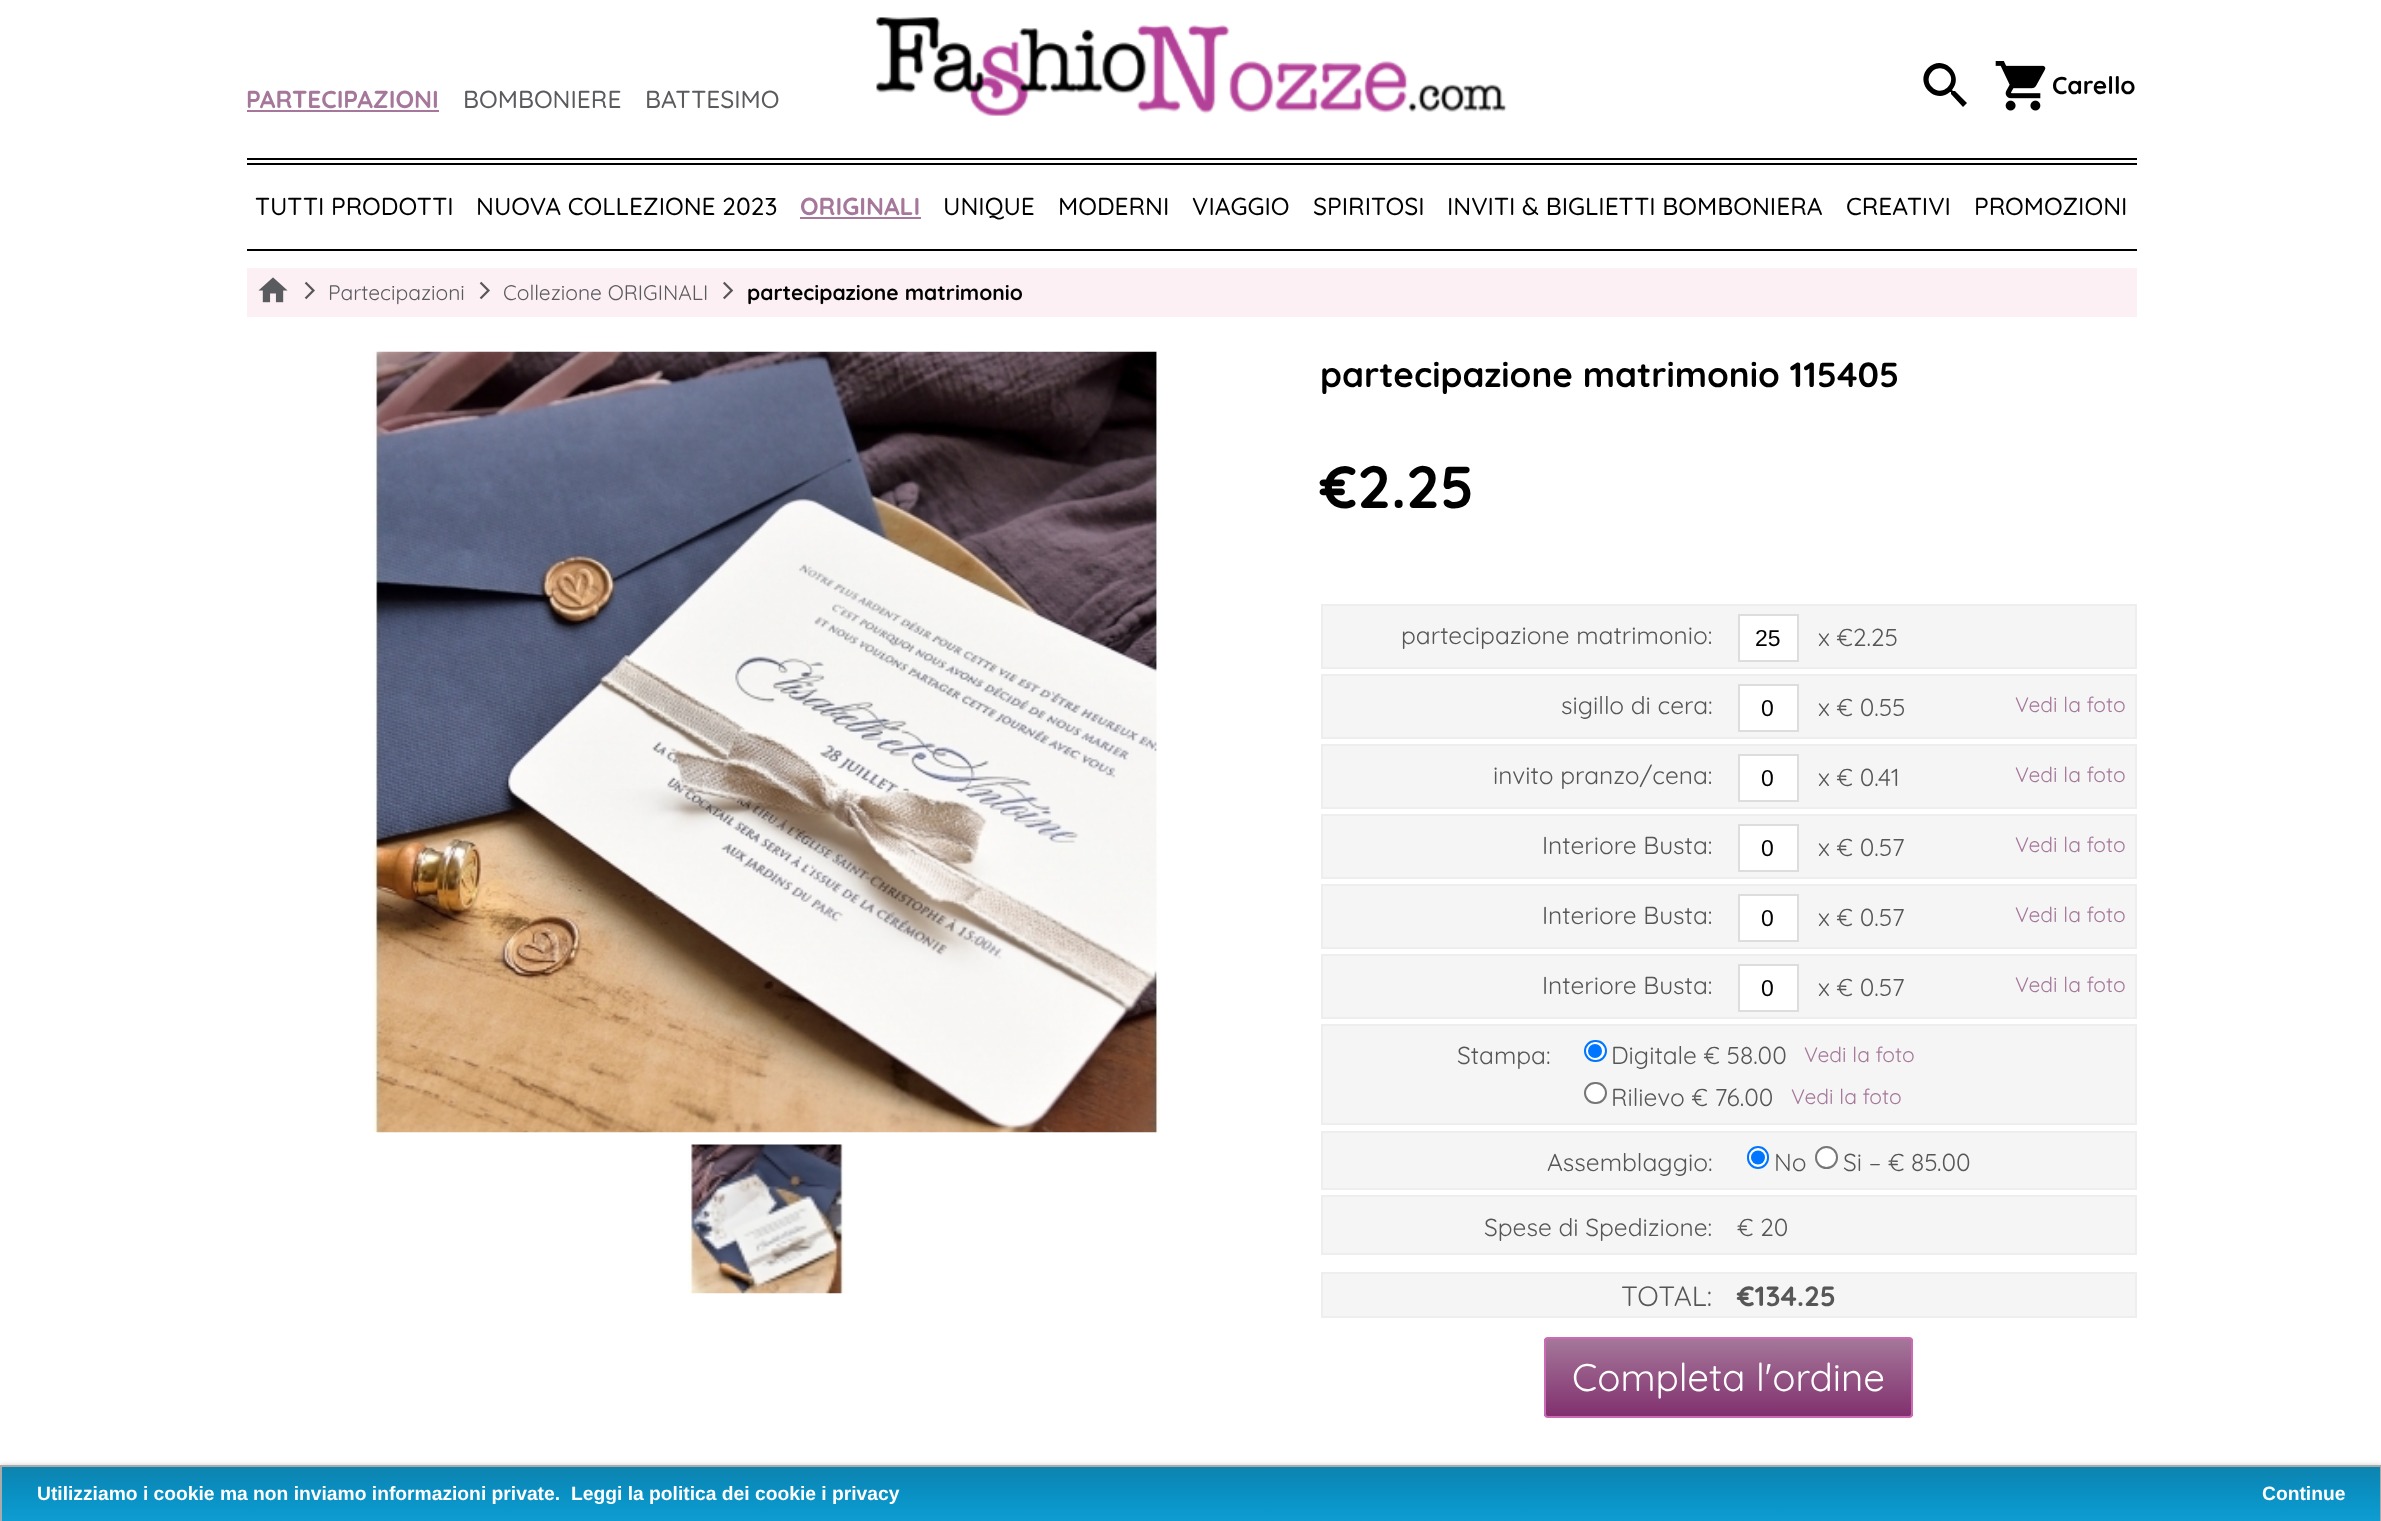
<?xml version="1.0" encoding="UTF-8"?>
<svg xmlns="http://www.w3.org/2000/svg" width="2381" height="1521">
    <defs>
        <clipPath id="clip1"><rect x="1544" y="1337" width="369" height="81" rx="4"/></clipPath>
        <linearGradient id="g1" gradientUnits="userSpaceOnUse" x1="1728" y1="1339" x2="1728" y2="1416"><stop offset="0" stop-color="#A5779A"/><stop offset="1" stop-color="#81306E"/></linearGradient>
        <filter id="blur1" x="-50%" y="-200%" width="200%" height="500%"><feGaussianBlur stdDeviation="2.5"/></filter>
        <linearGradient id="g2" gradientUnits="userSpaceOnUse" x1="1191" y1="1466" x2="1191" y2="1521"><stop offset="0" stop-color="#0E83AE"/><stop offset="0.5" stop-color="#0990C3"/><stop offset="1" stop-color="#0E9DD2"/></linearGradient>
    </defs>
    <rect width="100%" height="100%" fill="#FFFFFF"/>
    <image x="876" y="17" width="631" height="99" href="img_01.png"/>
    <path d="M 1932 87 C 1942 98 1958 82 1948 72 C 1937 61 1922 77 1932 87 Z M 1955 91 L 1967 103 L 1963 107 L 1951 94 V 92 H 1950 C 1935 105 1914 83 1928 68 C 1943 53 1965 75 1952 90 L 1953 91 Z" fill="#000000"/>
    <image x="1995" y="61" width="51" height="50" href="img_02.png"/>
    <text x="2052" y="94" font-family="Quicksand" font-size="24.5" font-weight="700" fill="#000000">Carello</text>
    <text x="246" y="108" font-family="Quicksand" font-size="24.5" font-weight="700" fill="#A5779A">PARTECIPAZIONI</text>
    <rect x="247" y="110" width="192" height="2" fill="#A5779A"/>
    <text x="463" y="108" font-family="Quicksand" font-size="24.5" font-weight="500" fill="#5A5B5F">BOMBONIERE</text>
    <text x="645" y="108" font-family="Quicksand" font-size="24.5" font-weight="500" fill="#5A5B5F">BATTESIMO</text>
    <rect x="247" y="158" width="1890" height="2" fill="#000000"/>
    <rect x="247" y="163" width="1890" height="2" fill="#000000"/>
    <rect x="247" y="249" width="1890" height="2" fill="#000000"/>
    <text x="255" y="215" font-family="Quicksand" font-size="24.5" font-weight="500" fill="#000000">TUTTI PRODOTTI</text>
    <text x="476" y="215" font-family="Quicksand" font-size="24.5" font-weight="500" fill="#000000">NUOVA COLLEZIONE 2023</text>
    <text x="800" y="215" font-family="Quicksand" font-size="24.5" font-weight="700" fill="#A5779A">ORIGINALI</text>
    <rect x="800" y="217" width="121" height="2" fill="#A5779A"/>
    <text x="943" y="215" font-family="Quicksand" font-size="24.5" font-weight="500" fill="#000000">UNIQUE</text>
    <text x="1058" y="215" font-family="Quicksand" font-size="24.5" font-weight="500" fill="#000000">MODERNI</text>
    <text x="1192" y="215" font-family="Quicksand" font-size="24.5" font-weight="500" fill="#000000">VIAGGIO</text>
    <text x="1313" y="215" font-family="Quicksand" font-size="24.5" font-weight="500" fill="#000000">SPIRITOSI</text>
    <text x="1447" y="215" font-family="Quicksand" font-size="24.5" font-weight="500" fill="#000000">INVITI &amp; BIGLIETTI BOMBONIERA</text>
    <text x="1846" y="215" font-family="Quicksand" font-size="24.5" font-weight="500" fill="#000000">CREATIVI</text>
    <text x="1974" y="215" font-family="Quicksand" font-size="24.5" font-weight="500" fill="#000000">PROMOZIONI</text>
    <rect x="247" y="268" width="1890" height="49" fill="#FCF0F4"/>
    <image x="258" y="277" width="30" height="26" href="img_03.png"/>
    <image x="304" y="281" width="11" height="19" href="img_04.png"/>
    <text x="328" y="300" font-family="Quicksand" font-size="21" fill="#5A5B5F">Partecipazioni</text>
    <image x="479" y="281" width="11" height="19" href="img_04.png"/>
    <text x="503" y="300" font-family="Quicksand" font-size="21" fill="#5A5B5F">Collezione ORIGINALI</text>
    <image x="723" y="281" width="11" height="19" href="img_05.png"/>
    <text x="747" y="300" font-family="Quicksand" font-size="21" font-weight="700" fill="#000000">partecipazione matrimonio</text>
    <image x="372" y="351" width="788" height="782" href="img_06.png"/>
    <image x="688" y="1144" width="156" height="150" href="img_07.png"/>
    <text x="1320" y="387" font-family="Quicksand" font-size="35" font-weight="700" fill="#000000">partecipazione matrimonio 115405</text>
    <text x="1320" y="508" font-family="Quicksand" font-size="59.5" font-weight="700" fill="#000000">€2.25</text>
    <rect x="1322" y="605" width="814" height="63" fill="#F5F5F5" stroke="#EEEEEE" stroke-width="2"/>
    <text x="1401" y="644" font-family="Quicksand" font-size="24.5" fill="#565656">partecipazione matrimonio:</text>
    <rect x="1739" y="615" width="59" height="46" fill="#FFFFFF" stroke="#DDDDDD" stroke-width="2"/>
    <text x="1755" y="646" font-family="Liberation Sans" font-size="23" fill="#000000">25</text>
    <text x="1818" y="646" font-family="Quicksand" font-size="24.5" fill="#565656">x €2.25</text>
    <rect x="1322" y="675" width="814" height="63" fill="#F5F5F5" stroke="#EEEEEE" stroke-width="2"/>
    <text x="1561" y="714" font-family="Quicksand" font-size="24.5" fill="#565656">sigillo di cera:</text>
    <rect x="1739" y="685" width="59" height="46" fill="#FFFFFF" stroke="#DDDDDD" stroke-width="2"/>
    <text x="1761" y="716" font-family="Liberation Sans" font-size="23" fill="#000000">0</text>
    <text x="1818" y="716" font-family="Quicksand" font-size="24.5" fill="#565656">x € 0.55</text>
    <text x="2015" y="712" font-family="Quicksand" font-size="21" fill="#A5779A">Vedi la foto</text>
    <rect x="1322" y="745" width="814" height="63" fill="#F5F5F5" stroke="#EEEEEE" stroke-width="2"/>
    <text x="1493" y="784" font-family="Quicksand" font-size="24.5" fill="#565656">invito pranzo/cena:</text>
    <rect x="1739" y="755" width="59" height="46" fill="#FFFFFF" stroke="#DDDDDD" stroke-width="2"/>
    <text x="1761" y="786" font-family="Liberation Sans" font-size="23" fill="#000000">0</text>
    <text x="1818" y="786" font-family="Quicksand" font-size="24.5" fill="#565656">x € 0.41</text>
    <text x="2015" y="782" font-family="Quicksand" font-size="21" fill="#A5779A">Vedi la foto</text>
    <rect x="1322" y="815" width="814" height="63" fill="#F5F5F5" stroke="#EEEEEE" stroke-width="2"/>
    <text x="1542" y="854" font-family="Quicksand" font-size="24.5" fill="#565656">Interiore Busta:</text>
    <rect x="1739" y="825" width="59" height="46" fill="#FFFFFF" stroke="#DDDDDD" stroke-width="2"/>
    <text x="1761" y="856" font-family="Liberation Sans" font-size="23" fill="#000000">0</text>
    <text x="1818" y="856" font-family="Quicksand" font-size="24.5" fill="#565656">x € 0.57</text>
    <text x="2015" y="852" font-family="Quicksand" font-size="21" fill="#A5779A">Vedi la foto</text>
    <rect x="1322" y="885" width="814" height="63" fill="#F5F5F5" stroke="#EEEEEE" stroke-width="2"/>
    <text x="1542" y="924" font-family="Quicksand" font-size="24.5" fill="#565656">Interiore Busta:</text>
    <rect x="1739" y="895" width="59" height="46" fill="#FFFFFF" stroke="#DDDDDD" stroke-width="2"/>
    <text x="1761" y="926" font-family="Liberation Sans" font-size="23" fill="#000000">0</text>
    <text x="1818" y="926" font-family="Quicksand" font-size="24.5" fill="#565656">x € 0.57</text>
    <text x="2015" y="922" font-family="Quicksand" font-size="21" fill="#A5779A">Vedi la foto</text>
    <rect x="1322" y="955" width="814" height="63" fill="#F5F5F5" stroke="#EEEEEE" stroke-width="2"/>
    <text x="1542" y="994" font-family="Quicksand" font-size="24.5" fill="#565656">Interiore Busta:</text>
    <rect x="1739" y="965" width="59" height="46" fill="#FFFFFF" stroke="#DDDDDD" stroke-width="2"/>
    <text x="1761" y="996" font-family="Liberation Sans" font-size="23" fill="#000000">0</text>
    <text x="1818" y="996" font-family="Quicksand" font-size="24.5" fill="#565656">x € 0.57</text>
    <text x="2015" y="992" font-family="Quicksand" font-size="21" fill="#A5779A">Vedi la foto</text>
    <rect x="1322" y="1025" width="814" height="99" fill="#F5F5F5" stroke="#EEEEEE" stroke-width="2"/>
    <text x="1457" y="1064" font-family="Quicksand" font-size="24.5" fill="#565656">Stampa:</text>
    <rect x="1585" y="1041" width="21" height="20" rx="10" fill="#FFFFFF" stroke="#0075FF" stroke-width="2"/>
    <circle cx="1595" cy="1051" r="7" fill="#0075FF"/>
    <text x="1611" y="1064" font-family="Quicksand" font-size="24.5" fill="#565656">Digitale € 58.00</text>
    <text x="1804" y="1062" font-family="Quicksand" font-size="21" fill="#A5779A">Vedi la foto</text>
    <rect x="1585" y="1083" width="21" height="20" rx="10" fill="#FFFFFF" stroke="#767676" stroke-width="2"/>
    <text x="1611" y="1106" font-family="Quicksand" font-size="24.5" fill="#565656">Rilievo € 76.00</text>
    <text x="1791" y="1104" font-family="Quicksand" font-size="21" fill="#A5779A">Vedi la foto</text>
    <rect x="1322" y="1132" width="814" height="57" fill="#F5F5F5" stroke="#EEEEEE" stroke-width="2"/>
    <text x="1547" y="1171" font-family="Quicksand" font-size="24.5" fill="#565656">Assemblaggio:</text>
    <rect x="1748" y="1147" width="20" height="21" rx="10" fill="#FFFFFF" stroke="#0075FF" stroke-width="2"/>
    <circle cx="1758" cy="1157.5" r="7" fill="#0075FF"/>
    <text x="1774" y="1171" font-family="Quicksand" font-size="24.5" fill="#565656">No</text>
    <circle cx="1826.5" cy="1157.5" r="10.5" fill="#FFFFFF" stroke="#767676" stroke-width="2"/>
    <text x="1843" y="1171" font-family="Quicksand" font-size="24.5" fill="#565656">Si – € 85.00</text>
    <rect x="1322" y="1196" width="814" height="58" fill="#F5F5F5" stroke="#EEEEEE" stroke-width="2"/>
    <text x="1484" y="1236" font-family="Quicksand" font-size="24.5" fill="#565656">Spese di Spedizione:</text>
    <text x="1737" y="1236" font-family="Quicksand" font-size="24.5" fill="#565656">€ 20</text>
    <rect x="1322" y="1273" width="814" height="44" fill="#F5F5F5" stroke="#EEEEEE" stroke-width="2"/>
    <text x="1621" y="1306" font-family="Quicksand" font-size="28" fill="#565656">TOTAL:</text>
    <text x="1737" y="1306" font-family="Quicksand" font-size="28" font-weight="700" fill="#565656">€134.25</text>
    <g clip-path="url(#clip1)">
        <rect x="1544" y="1339" width="369" height="77" fill="url(#g1)"/>
    </g>
    <rect x="1545" y="1338" width="367" height="79" rx="3" fill="none" stroke="#CC6AB5" stroke-width="2"/>
    <text x="1572" y="1391" font-family="Quicksand" font-size="38.5" fill="#FFFFFF">Completa l'ordine</text>
    <rect x="0" y="1465" width="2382" height="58" fill="#CCCCCC" filter="url(#blur1)"/>
    <rect x="2" y="1467" width="2378" height="54" fill="url(#g2)"/>
    <rect x="0" y="1465" width="2381" height="2" fill="#AAAAAA"/>
    <rect x="2380" y="1465" width="1" height="56" fill="#AAAAAA"/>
    <rect x="0" y="1465" width="2" height="56" fill="#AAAAAA"/>
    <text x="37" y="1500" font-family="Liberation Sans" font-size="19.25" font-weight="700" fill="#FFFFFF">Utilizziamo i cookie ma non inviamo informazioni private.</text>
    <text x="571" y="1500" font-family="Liberation Sans" font-size="19.25" font-weight="700" fill="#FFFFFF">Leggi la politica dei cookie i privacy</text>
    <text x="2262" y="1500" font-family="Liberation Sans" font-size="19.25" font-weight="700" fill="#FFFFFF">Continue</text>
</svg>
